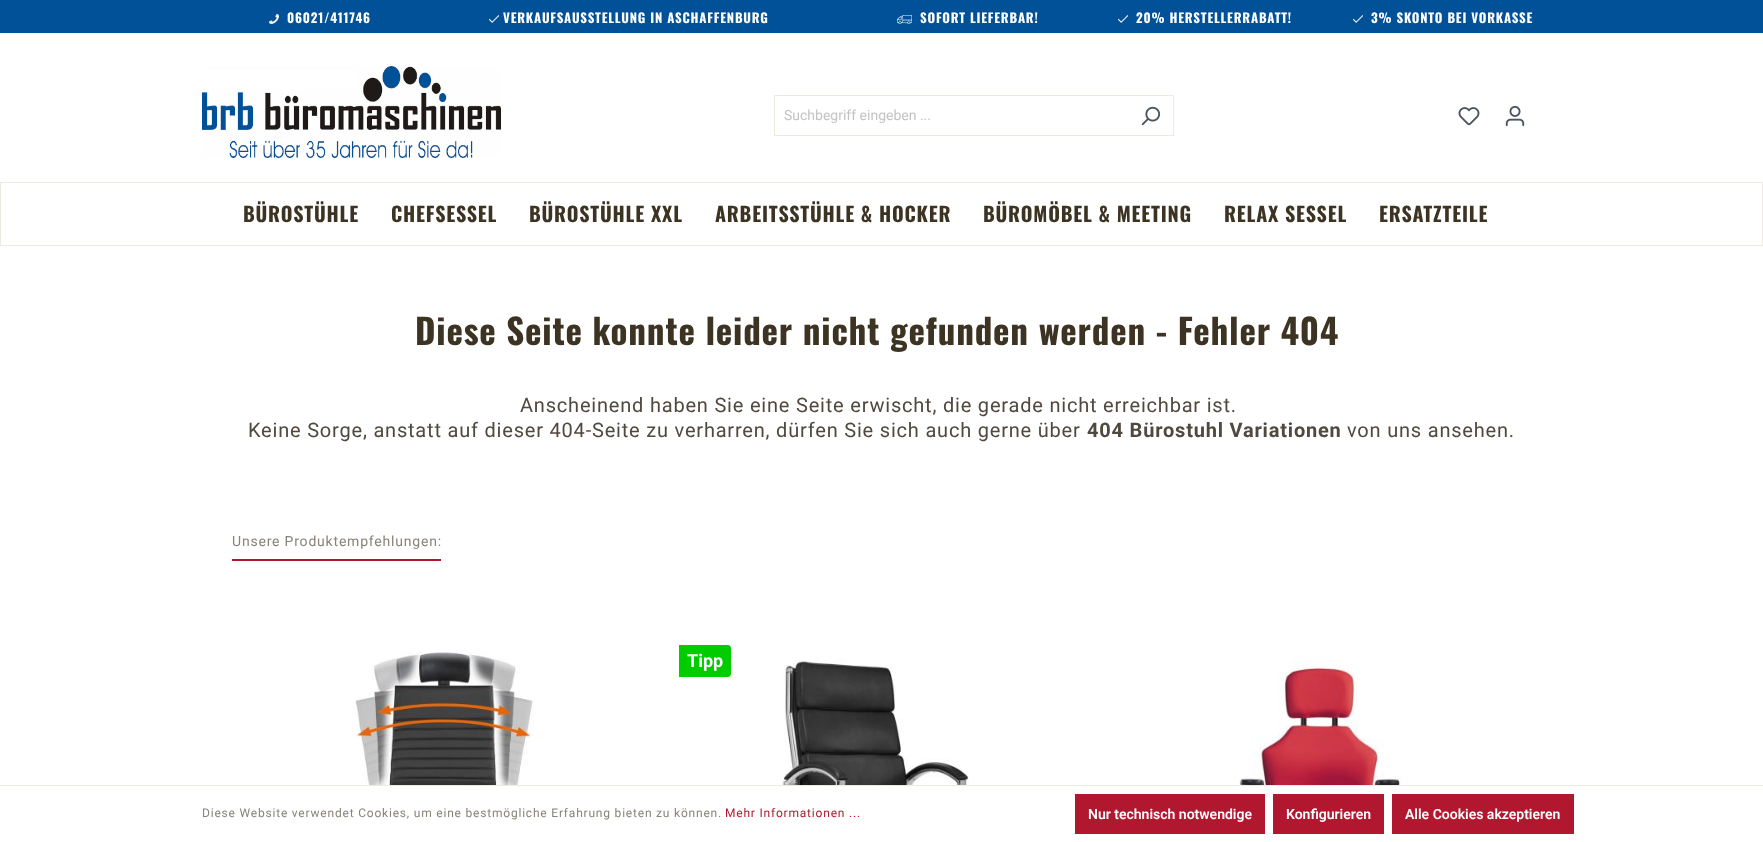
<?xml version="1.0" encoding="UTF-8"?>
<svg xmlns="http://www.w3.org/2000/svg" width="1763" height="842">
    <rect width="100%" height="100%" fill="#FFFFFF"/>
    <rect x="0" y="0" width="1763" height="33" fill="#015198"/>
    <image x="269" y="14" width="10" height="10" href="img_01.png"/>
    <text x="287" y="23" font-family="Oswald" font-size="13" font-weight="700" letter-spacing="0.8" fill="#FFFFFF">06021/411746</text>
    <image x="489" y="15" width="10" height="8" href="img_02.png"/>
    <text x="503" y="23" font-family="Oswald" font-size="13" font-weight="700" letter-spacing="0.8" fill="#FFFFFF">VERKAUFSAUSSTELLUNG IN ASCHAFFENBURG</text>
    <image x="897" y="15" width="15" height="9" href="img_03.png"/>
    <text x="920" y="23" font-family="Oswald" font-size="13" font-weight="700" letter-spacing="0.8" fill="#FFFFFF">SOFORT LIEFERBAR!</text>
    <image x="1118" y="15" width="10" height="8" href="img_02.png"/>
    <text x="1136" y="23" font-family="Oswald" font-size="13" font-weight="700" letter-spacing="0.8" fill="#FFFFFF">20% HERSTELLERRABATT!</text>
    <image x="1353" y="15" width="10" height="8" href="img_02.png"/>
    <text x="1371" y="23" font-family="Oswald" font-size="13" font-weight="700" letter-spacing="0.8" fill="#FFFFFF">3% SKONTO BEI VORKASSE</text>
    <image x="202" y="66" width="299" height="92" href="img_04.png"/>
    <rect x="774" y="95" width="400" height="1" fill="#EDE9E3"/>
    <rect x="774" y="135" width="354" height="1" fill="#EDE9E3"/>
    <rect x="774" y="95" width="1" height="41" fill="#EDE9E3"/>
    <text x="784" y="120" font-family="Roboto" font-size="14" fill="#C3C3C3">Suchbegriff eingeben ...</text>
    <rect x="1173" y="95" width="1" height="41" fill="#EDE9E3"/>
    <rect x="1127" y="135" width="47" height="1" fill="#EDE9E3"/>
    <image x="1141" y="106" width="20" height="20" href="img_05.png"/>
    <image x="1458" y="107" width="22" height="19" href="img_06.png"/>
    <image x="1505" y="105" width="20" height="22" href="img_07.png"/>
    <rect x="0.5" y="182.5" width="1762" height="63" fill="none" stroke="#EDE9E3"/>
    <text x="243" y="222" font-family="Oswald" font-size="20" font-weight="700" letter-spacing="0.8" fill="#3D3323">BÜROSTÜHLE</text>
    <text x="391" y="222" font-family="Oswald" font-size="20" font-weight="700" letter-spacing="0.8" fill="#3D3323">CHEFSESSEL</text>
    <text x="529" y="222" font-family="Oswald" font-size="20" font-weight="700" letter-spacing="0.8" fill="#3D3323">BÜROSTÜHLE XXL</text>
    <text x="715" y="222" font-family="Oswald" font-size="20" font-weight="700" letter-spacing="0.8" fill="#3D3323">ARBEITSSTÜHLE &amp; HOCKER</text>
    <text x="983" y="222" font-family="Oswald" font-size="20" font-weight="700" letter-spacing="0.8" fill="#3D3323">BÜROMÖBEL &amp; MEETING</text>
    <text x="1224" y="222" font-family="Oswald" font-size="20" font-weight="700" letter-spacing="0.8" fill="#3D3323">RELAX SESSEL</text>
    <text x="1379" y="222" font-family="Oswald" font-size="20" font-weight="700" letter-spacing="0.8" fill="#3D3323">ERSATZTEILE</text>
    <text x="415" y="345" font-family="Oswald" font-size="35" font-weight="700" letter-spacing="0.8" fill="#3D3323">Diese Seite konnte leider nicht gefunden werden - Fehler 404</text>
    <text x="520" y="412" font-family="Roboto" font-size="20" letter-spacing="0.8" fill="#50493F">Anscheinend haben Sie eine Seite erwischt, die gerade nicht erreichbar ist.</text>
    <text x="248" y="437" font-family="Roboto" font-size="20" letter-spacing="0.8" fill="#50493F">Keine Sorge, anstatt auf dieser 404-Seite zu verharren, dürfen Sie sich auch gerne über</text>
    <text x="1087" y="437" font-family="Roboto" font-size="20" font-weight="700" letter-spacing="0.8" fill="#50493F">404 Bürostuhl Variationen</text>
    <text x="1347" y="437" font-family="Roboto" font-size="20" letter-spacing="0.8" fill="#50493F">von uns ansehen.</text>
    <rect x="232" y="559" width="209" height="2" fill="#B11830"/>
    <text x="232" y="546" font-family="Roboto" font-size="14" letter-spacing="0.8" fill="#898379">Unsere Produktempfehlungen:</text>
    <image x="350" y="652" width="190" height="133" href="img_08.png"/>
    <path d="M 679 645 H 728 C 729.5 645 731 646.5 731 648 V 674 C 731 675.5 729.5 677 728 677 H 679 Z" fill="#00CC00"/>
    <text x="687" y="667" font-family="Roboto" font-size="18" font-weight="700" fill="#FFFFFF">Tipp</text>
    <image x="782" y="659" width="200" height="126" href="img_09.png"/>
    <image x="1239" y="658" width="163" height="127" href="img_10.png"/>
    <rect x="0" y="785" width="1763" height="1" fill="#EDE9E3"/>
    <text x="202" y="817" font-family="Roboto" font-size="12" letter-spacing="0.8" fill="#898379">Diese Website verwendet Cookies, um eine bestmögliche Erfahrung bieten zu können.</text>
    <text x="725" y="817" font-family="Roboto" font-size="12" letter-spacing="0.8" fill="#B11830">Mehr Informationen ...</text>
    <rect x="1075" y="794" width="190" height="40" fill="#B11830"/>
    <text x="1088" y="819" font-family="Roboto" font-size="14" font-weight="600" fill="#FFFFFF">Nur technisch notwendige</text>
    <rect x="1273" y="794" width="111" height="40" fill="#B11830"/>
    <text x="1286" y="819" font-family="Roboto" font-size="14" font-weight="600" fill="#FFFFFF">Konfigurieren</text>
    <rect x="1392" y="794" width="182" height="40" fill="#B11830"/>
    <text x="1405" y="819" font-family="Roboto" font-size="14" font-weight="600" fill="#FFFFFF">Alle Cookies akzeptieren</text>
</svg>
